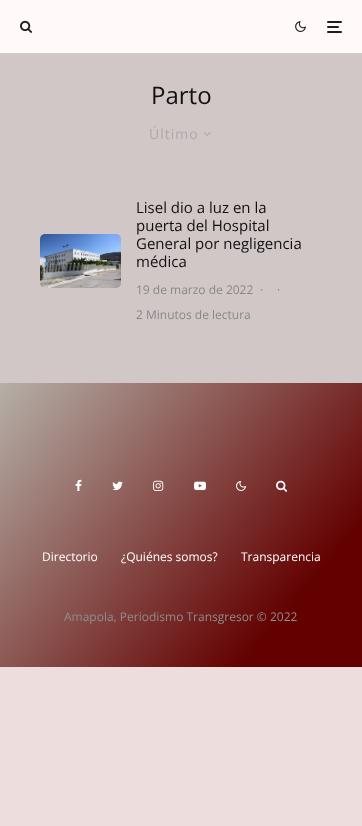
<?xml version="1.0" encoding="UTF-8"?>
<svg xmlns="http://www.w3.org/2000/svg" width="362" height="826">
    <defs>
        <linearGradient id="g1" gradientUnits="userSpaceOnUse" x1="4.9" y1="377" x2="357" y2="673"><stop offset="0" stop-color="#B5B0A8"/><stop offset="0.8" stop-color="#630000"/></linearGradient>
    </defs>
    <rect width="100%" height="100%" fill="#EEDDDD"/>
    <rect x="0" y="0" width="362" height="53" fill="#FFF9F9"/>
    <image x="20" y="20" width="12" height="13" href="img_01.png"/>
    <image x="295" y="21" width="11" height="11" href="img_02.png"/>
    <rect x="327" y="26" width="12" height="2" rx="1" fill="#1E1E1E"/>
    <rect x="327" y="21" width="15" height="2" rx="1" fill="#1E1E1E"/>
    <rect x="327" y="31" width="15" height="2" rx="1" fill="#1E1E1E"/>
    <rect x="0" y="53" width="362" height="330" fill="#D1C7C7"/>
    <text x="151" y="104" font-family="Open Sans" font-size="24" fill="#111111">Parto</text>
    <text x="149" y="139" font-family="Open Sans" font-size="14" letter-spacing="1" fill="#AAAAAA">Último</text>
    <image x="203" y="132" width="8" height="4" href="img_03.png"/>
    <image x="40" y="234" width="81" height="54" href="img_04.png"/>
    <text font-family="Open Sans" font-size="15" fill="#111111">
        <tspan x="136" y="213">Lisel dio a luz en la</tspan>
        <tspan x="136" y="231">puerta del Hospital</tspan>
        <tspan x="136" y="249">General por negligencia</tspan>
        <tspan x="136" y="267">médica</tspan>
    </text>
    <text x="136" y="294" font-family="Open Sans" font-size="12" fill="#888888">19 de marzo de 2022</text>
    <text x="260" y="294" font-family="Open Sans" font-size="12" fill="#888888">·</text>
    <text x="277" y="294" font-family="Open Sans" font-size="12" fill="#888888">·</text>
    <text x="136" y="319" font-family="Open Sans" font-size="12" fill="#888888">2 Minutos de lectura</text>
    <rect x="0" y="383" width="362" height="284" fill="url(#g1)"/>
    <image x="75" y="479" width="7" height="12" href="img_05.png"/>
    <image x="112" y="481" width="11" height="10" href="img_06.png"/>
    <image x="153" y="480" width="11" height="11" href="img_07.png"/>
    <image x="194" y="481" width="12" height="10" href="img_08.png"/>
    <image x="236" y="481" width="10" height="10" href="img_09.png"/>
    <image x="276" y="480" width="12" height="12" href="img_10.png"/>
    <text x="42" y="561" font-family="Open Sans" font-size="12" fill="#FFFFFF">Directorio</text>
    <text x="121" y="561" font-family="Open Sans" font-size="12" fill="#FFFFFF">¿Quiénes somos?</text>
    <text x="241" y="561" font-family="Open Sans" font-size="12" fill="#FFFFFF">Transparencia</text>
    <text x="64" y="621" font-family="Open Sans" font-size="12" fill="#8E8E8E">Amapola, Periodismo Transgresor © 2022</text>
</svg>
